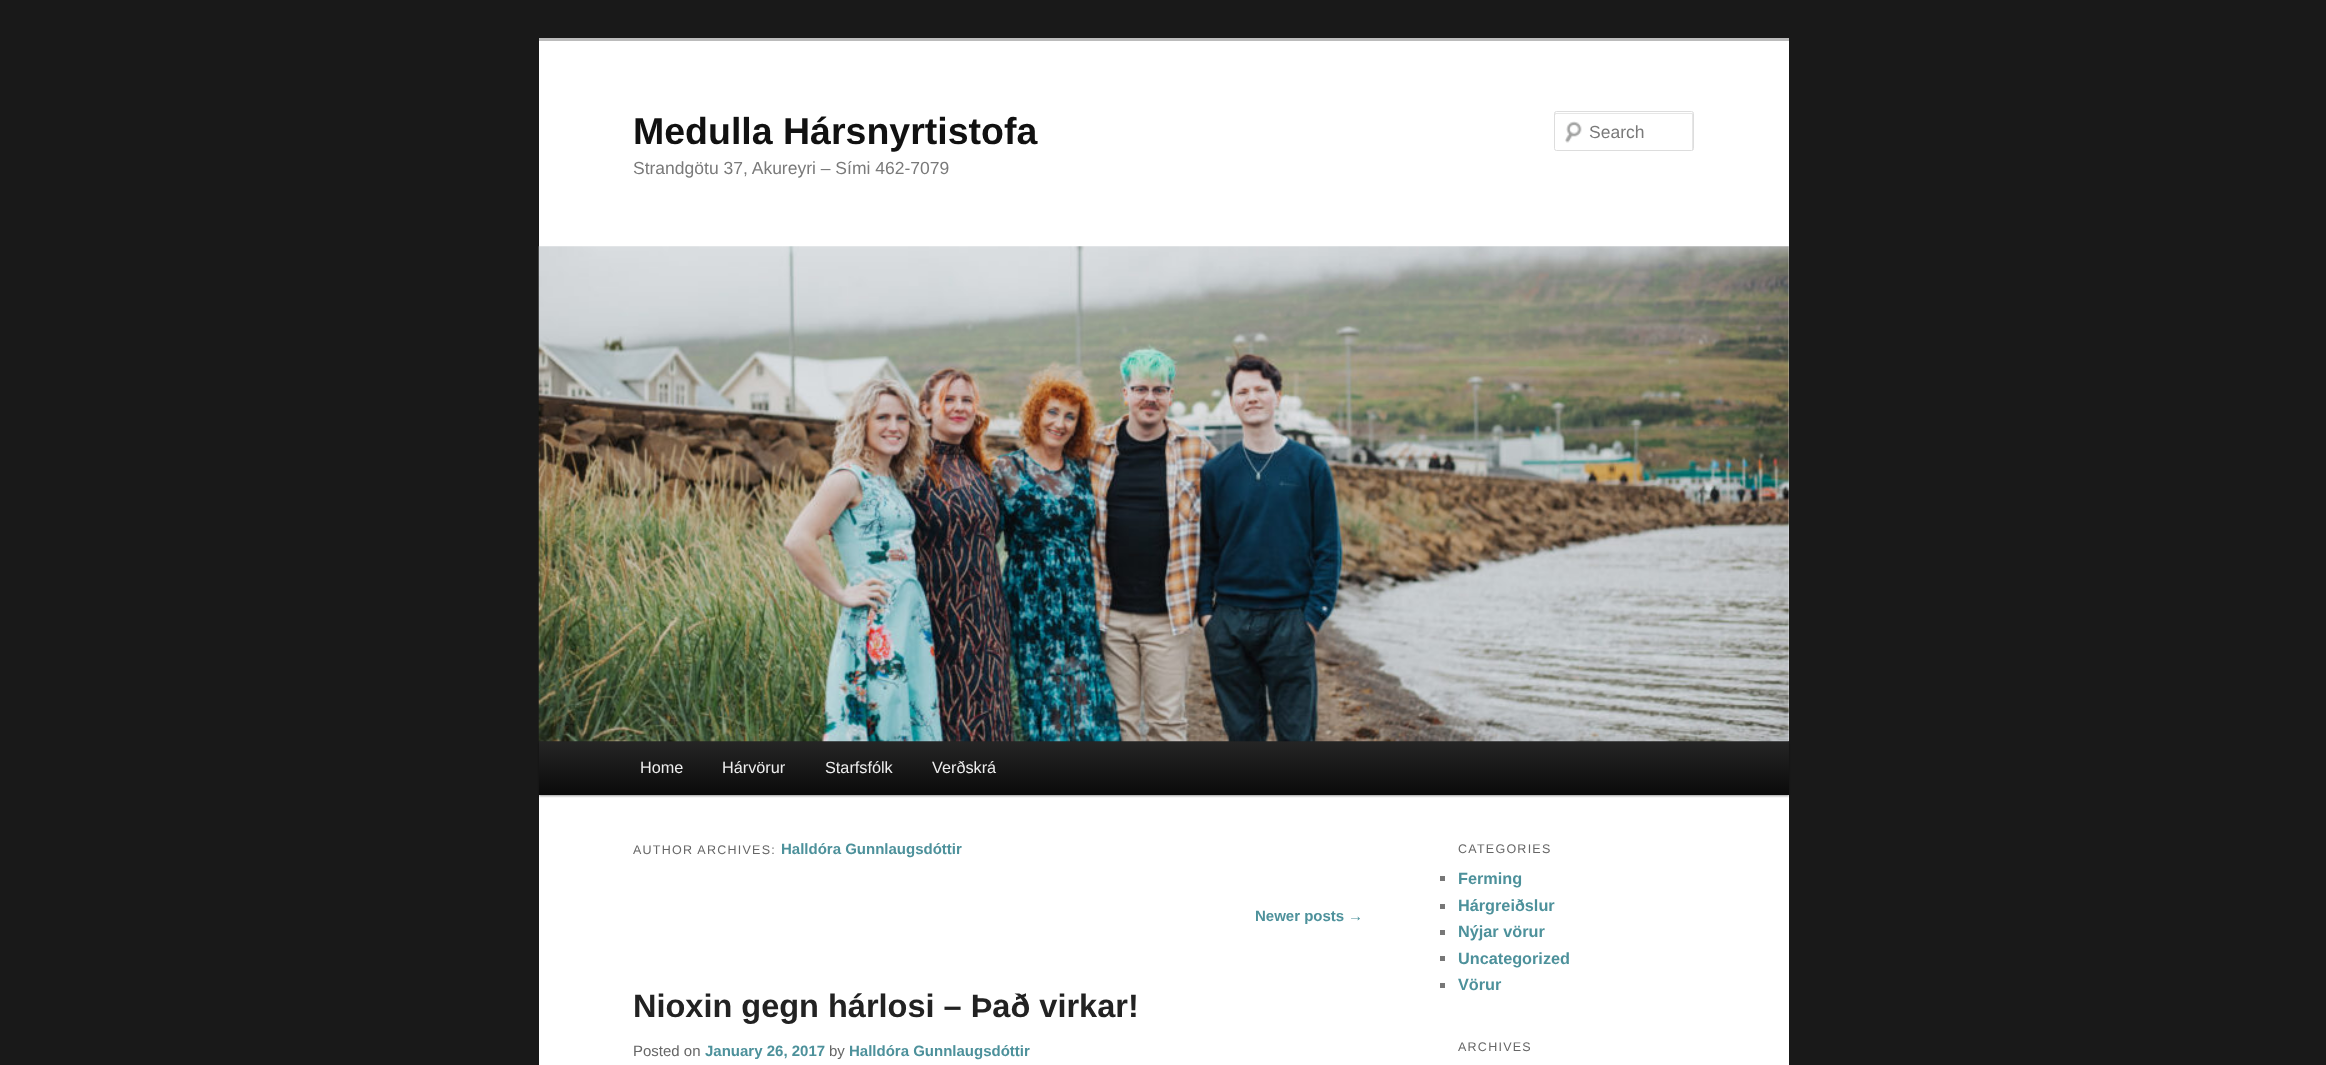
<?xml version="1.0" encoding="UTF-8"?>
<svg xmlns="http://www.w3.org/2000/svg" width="2326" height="1065">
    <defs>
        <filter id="blur1" x="-50%" y="-200%" width="200%" height="500%"><feGaussianBlur stdDeviation="1"/></filter>
        <linearGradient id="g1" gradientUnits="userSpaceOnUse" x1="1164" y1="741" x2="1164" y2="795"><stop offset="0" stop-color="#252525"/><stop offset="1" stop-color="#0A0A0A"/></linearGradient>
    </defs>
    <rect width="100%" height="100%" fill="#191919"/>
    <rect x="539" y="41" width="1250" height="1024" fill="#FFFFFF"/>
    <rect x="539" y="38" width="1250" height="3" fill="#BBBBBB"/>
    <text x="633" y="144" font-family="Liberation Sans" font-size="37.5" font-weight="700" fill="#111111">Medulla Hársnyrtistofa</text>
    <text x="633" y="174" font-family="Liberation Sans" font-size="17.5" fill="#7A7A7A">Strandgötu 37, Akureyri – Sími 462-7079</text>
    <image x="1565" y="121" width="17" height="22" href="img_01.png"/>
    <path d="M 1556 114 H 1691 C 1692 114 1692 114 1692 115 V 150 C 1693 150 1693 150 1693 149 V 114 C 1693 113 1693 113 1692 113 H 1556 C 1555 113 1555 113 1555 114 V 115 Z" fill="#E6E6E6"/>
    <rect x="1554.5" y="111.5" width="139" height="39" rx="2" fill="none" stroke="#DDDDDD"/>
    <text x="1589" y="138" font-family="Liberation Sans" font-size="17.5" fill="#7A7A7A">Search</text>
    <rect x="539" y="743" width="1250" height="53" fill="#000000" fill-opacity="0.4" filter="url(#blur1)"/>
    <rect x="539" y="741" width="1250" height="54" fill="url(#g1)"/>
    <image x="538" y="246" width="1251" height="496" href="img_02.png"/>
    <text x="640" y="773" font-family="Liberation Sans" font-size="16.25" fill="#EEEEEE">Home</text>
    <text x="722" y="773" font-family="Liberation Sans" font-size="16.25" fill="#EEEEEE">Hárvörur</text>
    <text x="825" y="773" font-family="Liberation Sans" font-size="16.25" fill="#EEEEEE">Starfsfólk</text>
    <text x="932" y="773" font-family="Liberation Sans" font-size="16.25" fill="#EEEEEE">Verðskrá</text>
    <text x="633" y="854" font-family="Liberation Sans" font-size="12.5" letter-spacing="1.25" fill="#666666">AUTHOR ARCHIVES:</text>
    <text x="781" y="854" font-family="Liberation Sans" font-size="15" font-weight="700" fill="#4D919B">Halldóra Gunnlaugsdóttir</text>
    <text x="1255" y="921" font-family="Liberation Sans" font-size="15" font-weight="700" fill="#4D919B">Newer posts</text>
    <text x="1348" y="921" font-family="Liberation Sans" font-size="15" fill="#4D919B">→</text>
    <text x="633" y="1017" font-family="Liberation Sans" font-size="32.5" font-weight="700" fill="#222222">Nioxin gegn hárlosi – Það virkar!</text>
    <text x="633" y="1056" font-family="Liberation Sans" font-size="15" fill="#666666">Posted on</text>
    <text x="705" y="1056" font-family="Liberation Sans" font-size="15" font-weight="700" fill="#4D919B">January 26, 2017</text>
    <text x="829" y="1056" font-family="Liberation Sans" font-size="15" fill="#666666">by</text>
    <text x="849" y="1056" font-family="Liberation Sans" font-size="15" font-weight="700" fill="#4D919B">Halldóra Gunnlaugsdóttir</text>
    <text x="1458" y="853" font-family="Liberation Sans" font-size="12.5" letter-spacing="1.25" fill="#666666">CATEGORIES</text>
    <rect x="1440" y="876" width="5" height="5" fill="#777777"/>
    <text x="1458" y="884" font-family="Liberation Sans" font-size="16.25" font-weight="700" fill="#4D919B">Ferming</text>
    <rect x="1440" y="904" width="5" height="5" fill="#777777"/>
    <text x="1458" y="911" font-family="Liberation Sans" font-size="16.25" font-weight="700" fill="#4D919B">Hárgreiðslur</text>
    <rect x="1440" y="930" width="5" height="5" fill="#777777"/>
    <text x="1458" y="937" font-family="Liberation Sans" font-size="16.25" font-weight="700" fill="#4D919B">Nýjar vörur</text>
    <rect x="1440" y="956" width="5" height="5" fill="#777777"/>
    <text x="1458" y="964" font-family="Liberation Sans" font-size="16.25" font-weight="700" fill="#4D919B">Uncategorized</text>
    <rect x="1440" y="983" width="5" height="5" fill="#777777"/>
    <text x="1458" y="990" font-family="Liberation Sans" font-size="16.25" font-weight="700" fill="#4D919B">Vörur</text>
    <text x="1458" y="1051" font-family="Liberation Sans" font-size="12.5" letter-spacing="1.25" fill="#666666">ARCHIVES</text>
</svg>
